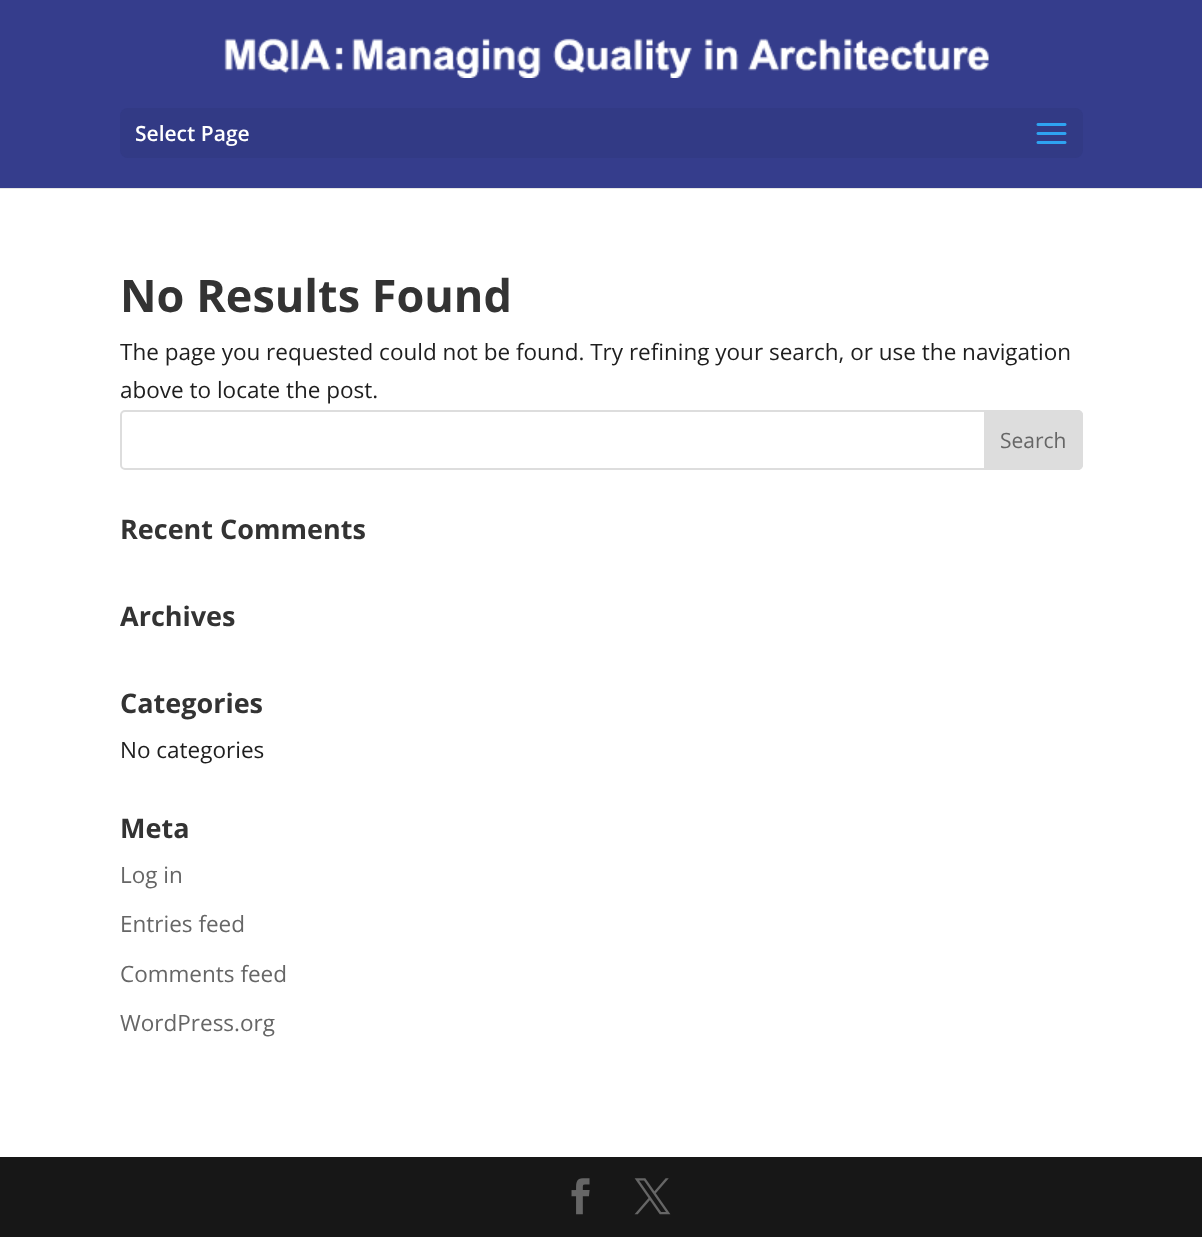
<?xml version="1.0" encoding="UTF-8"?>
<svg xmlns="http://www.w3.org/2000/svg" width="1202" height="1237">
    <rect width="100%" height="100%" fill="#FFFFFF"/>
    <rect x="0" y="188" width="1202" height="1" fill="#E6E6E6"/>
    <rect x="0" y="0" width="1202" height="188" fill="#353D8C"/>
    <image x="224" y="38" width="765" height="40" href="img_01.png"/>
    <rect x="120" y="108" width="963" height="50" rx="8" fill="#323A85"/>
    <text x="135" y="141" font-family="Open Sans" font-size="21" font-weight="600" fill="#FFFFFF">Select Page</text>
    <image x="1036" y="123" width="31" height="21" href="img_02.png"/>
    <text x="120" y="312" font-family="Open Sans" font-size="45" font-weight="700" fill="#333333">No Results Found</text>
    <text font-family="Open Sans" font-size="22.5" fill="#1E1E1E">
        <tspan x="120" y="360">The page you requested could not be found. Try refining your search, or use the navigation</tspan>
        <tspan x="120" y="398">above to locate the post.</tspan>
    </text>
    <rect x="121" y="411" width="961" height="58" rx="4" fill="none" stroke="#DDDDDD" stroke-width="2"/>
    <path d="M 985 411 H 1078 C 1080 411 1082 413 1082 415 V 465 C 1082 467 1080 469 1078 469 H 985 Z" fill="#DDDDDD" stroke="#DDDDDD" stroke-width="2"/>
    <text x="1000" y="448" font-family="Open Sans" font-size="21" fill="#666666">Search</text>
    <text x="120" y="539" font-family="Open Sans" font-size="27" font-weight="700" fill="#333333">Recent Comments</text>
    <text x="120" y="626" font-family="Open Sans" font-size="27" font-weight="700" fill="#333333">Archives</text>
    <text x="120" y="713" font-family="Open Sans" font-size="27" font-weight="700" fill="#333333">Categories</text>
    <text x="120" y="758" font-family="Open Sans" font-size="22.5" fill="#1E1E1E">No categories</text>
    <text x="120" y="838" font-family="Open Sans" font-size="27" font-weight="700" fill="#333333">Meta</text>
    <text x="120" y="883" font-family="Open Sans" font-size="22.5" fill="#666666">Log in</text>
    <text x="120" y="932" font-family="Open Sans" font-size="22.5" fill="#666666">Entries feed</text>
    <text x="120" y="982" font-family="Open Sans" font-size="22.5" fill="#666666">Comments feed</text>
    <text x="120" y="1031" font-family="Open Sans" font-size="22.5" fill="#666666">WordPress.org</text>
    <rect x="0" y="1157" width="1202" height="80" fill="#171717"/>
    <image x="571" y="1178" width="19" height="37" href="img_03.png"/>
    <image x="634" y="1178" width="37" height="37" href="img_04.png"/>
</svg>
